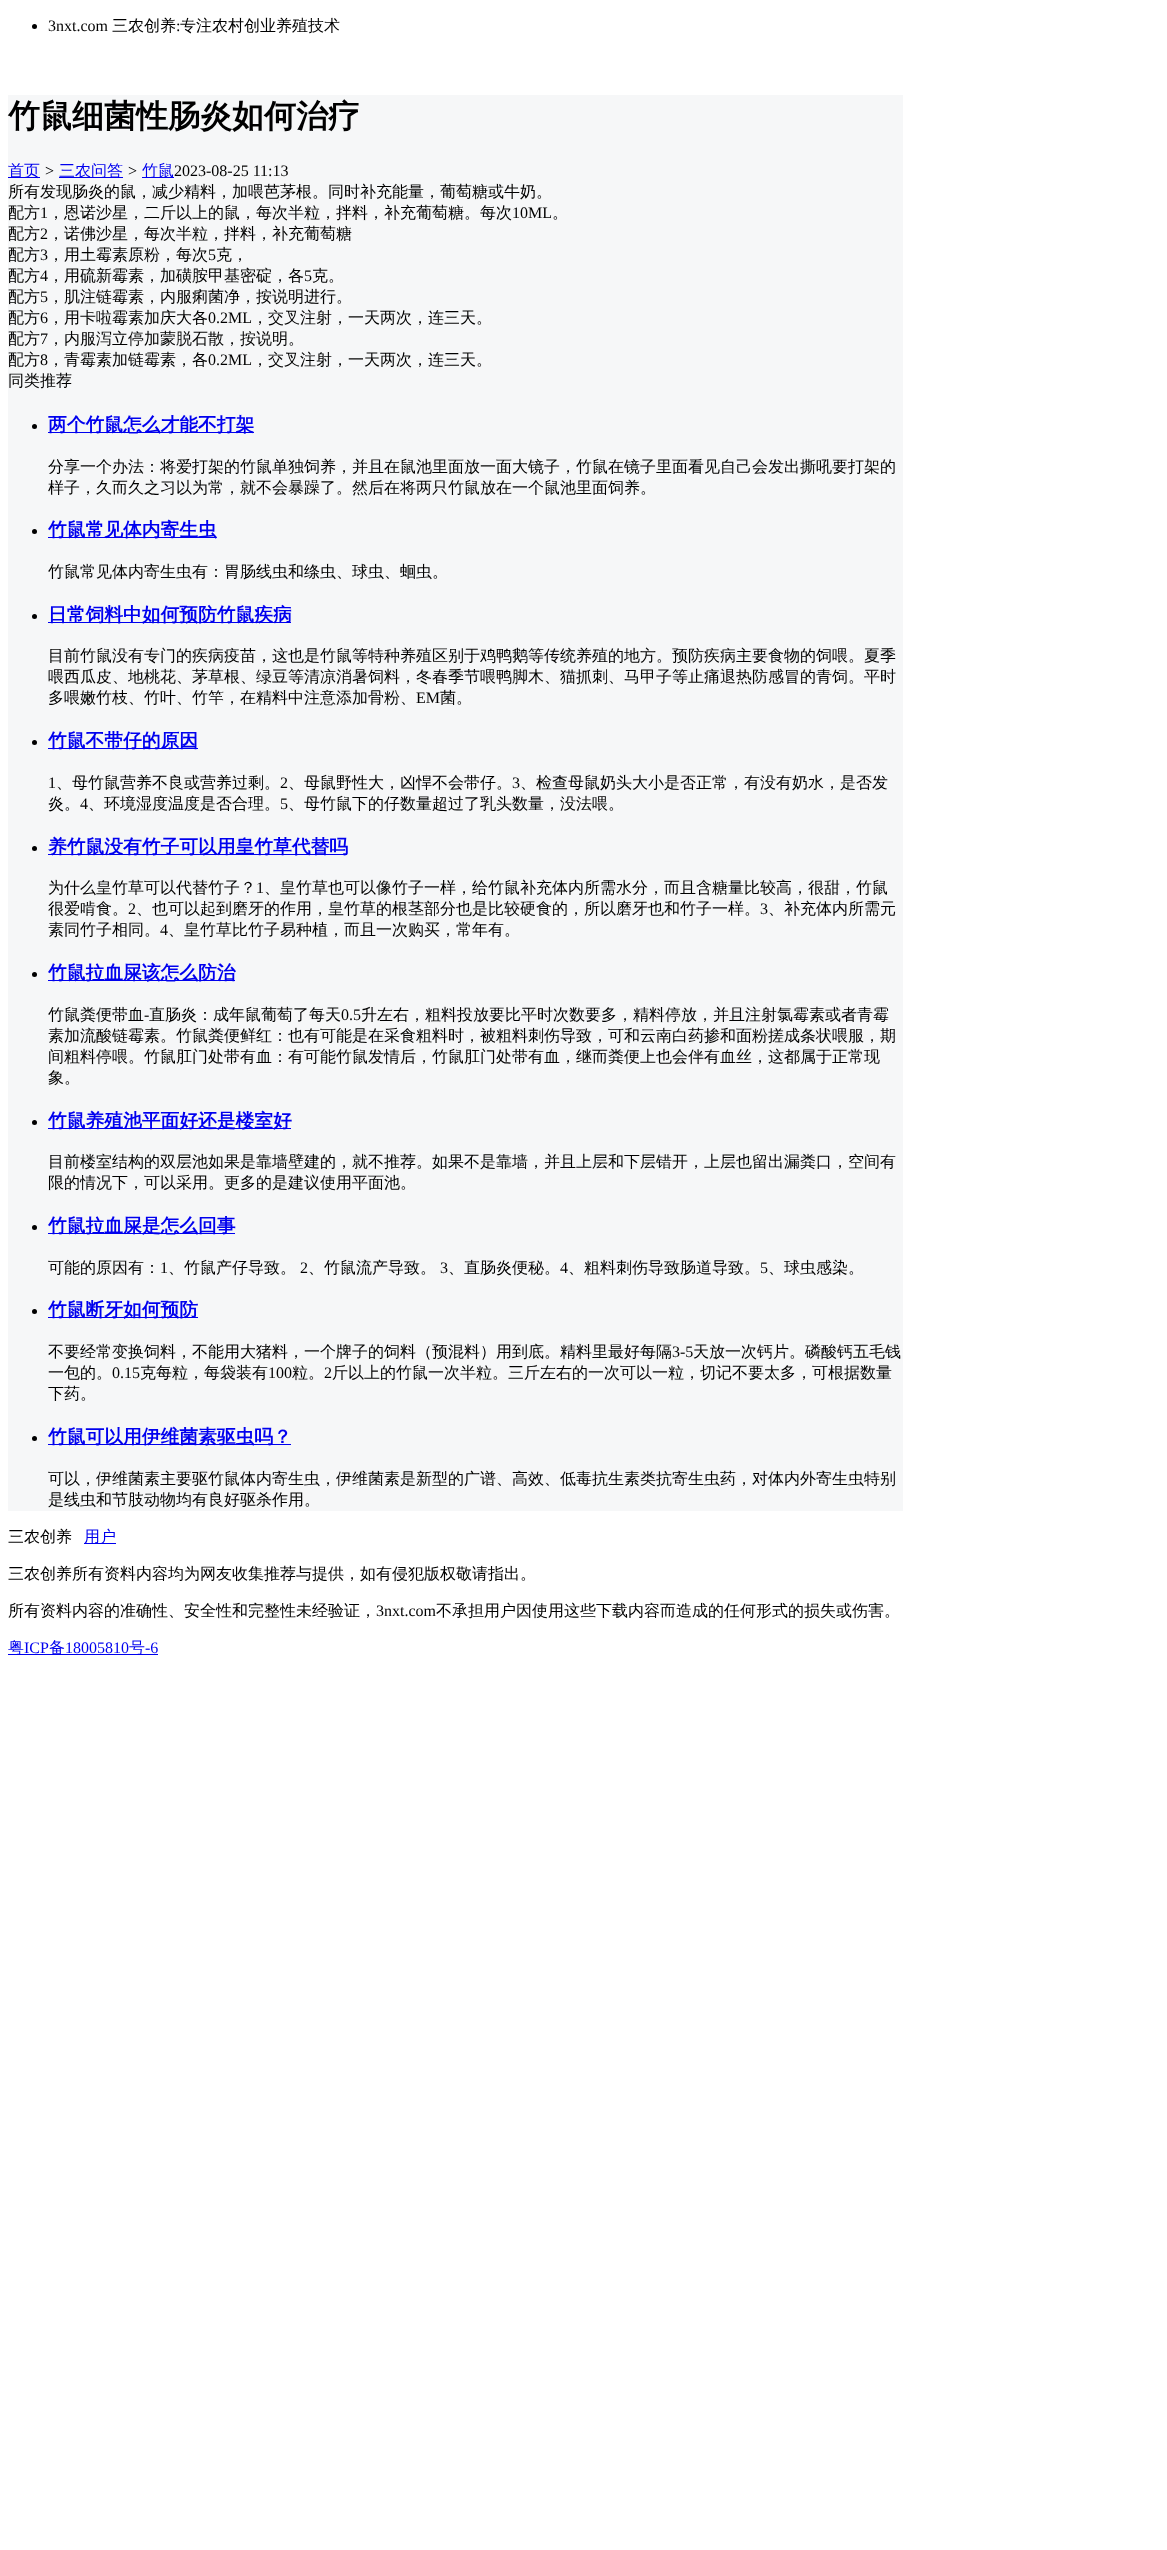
<?xml version="1.0" encoding="UTF-8"?>
<svg xmlns="http://www.w3.org/2000/svg" width="1167" height="2550">
    <rect width="100%" height="100%" fill="#FFFFFF"/>
    <circle cx="34.5" cy="26.5" r="2.5" fill="#000000"/>
    <text x="48" y="31" font-family="Liberation Serif" font-size="16" fill="#000000">3nxt.com</text>
    <text x="112" y="31" font-family="WenQuanYi Zen Hei" font-size="16" font-weight="500" fill="#000000">三农创养</text>
    <text x="176" y="31" font-family="Liberation Serif" font-size="16" fill="#000000">:</text>
    <text x="180" y="31" font-family="WenQuanYi Zen Hei" font-size="16" font-weight="500" fill="#000000">专注农村创业养殖技术</text>
    <rect x="8" y="95" width="895" height="1416" fill="#F6F7F8"/>
    <text x="8" y="127" font-family="WenQuanYi Zen Hei" font-size="32" font-weight="700" fill="#000000">竹鼠细菌性肠炎如何治疗</text>
    <rect x="8" y="177" width="32" height="1" fill="#0000EE"/>
    <text x="8" y="176" font-family="WenQuanYi Zen Hei" font-size="16" font-weight="500" fill="#0000EE">首页</text>
    <text x="44" y="176" font-family="Liberation Serif" font-size="16" font-style="italic" fill="#000000">&gt;</text>
    <rect x="59" y="177" width="64" height="1" fill="#0000EE"/>
    <text x="59" y="176" font-family="WenQuanYi Zen Hei" font-size="16" font-weight="500" fill="#0000EE">三农问答</text>
    <text x="127" y="176" font-family="Liberation Serif" font-size="16" font-style="italic" fill="#000000">&gt;</text>
    <rect x="142" y="177" width="32" height="1" fill="#0000EE"/>
    <text x="142" y="176" font-family="WenQuanYi Zen Hei" font-size="16" font-weight="500" fill="#0000EE">竹鼠</text>
    <text x="174" y="176" font-family="Liberation Serif" font-size="16" fill="#000000">2023-08-25 11:13</text>
    <text font-family="WenQuanYi Zen Hei" font-size="16" font-weight="500" fill="#000000">
        <tspan x="8" y="197">所有发现肠炎的鼠，减少精料，加喂芭茅根。同时补充能量，葡萄糖或牛奶。</tspan>
        <tspan x="8" y="218">配方</tspan>
    </text>
    <text x="40" y="218" font-family="Liberation Serif" font-size="16" fill="#000000">1</text>
    <text x="48" y="218" font-family="WenQuanYi Zen Hei" font-size="16" font-weight="500" fill="#000000">，恩诺沙星，二斤以上的鼠，每次半粒，拌料，补充葡萄糖。每次</text>
    <text x="512" y="218" font-family="Liberation Serif" font-size="16" fill="#000000">10ML</text>
    <text x="552" y="218" font-family="WenQuanYi Zen Hei" font-size="16" font-weight="500" fill="#000000">。</text>
    <text x="8" y="239" font-family="WenQuanYi Zen Hei" font-size="16" font-weight="500" fill="#000000">配方</text>
    <text x="40" y="239" font-family="Liberation Serif" font-size="16" fill="#000000">2</text>
    <text x="48" y="239" font-family="WenQuanYi Zen Hei" font-size="16" font-weight="500" fill="#000000">，诺佛沙星，每次半粒，拌料，补充葡萄糖</text>
    <text x="8" y="260" font-family="WenQuanYi Zen Hei" font-size="16" font-weight="500" fill="#000000">配方</text>
    <text x="40" y="260" font-family="Liberation Serif" font-size="16" fill="#000000">3</text>
    <text x="48" y="260" font-family="WenQuanYi Zen Hei" font-size="16" font-weight="500" fill="#000000">，用土霉素原粉，每次</text>
    <text x="208" y="260" font-family="Liberation Serif" font-size="16" fill="#000000">5</text>
    <text x="216" y="260" font-family="WenQuanYi Zen Hei" font-size="16" font-weight="500" fill="#000000">克，</text>
    <text x="8" y="281" font-family="WenQuanYi Zen Hei" font-size="16" font-weight="500" fill="#000000">配方</text>
    <text x="40" y="281" font-family="Liberation Serif" font-size="16" fill="#000000">4</text>
    <text x="48" y="281" font-family="WenQuanYi Zen Hei" font-size="16" font-weight="500" fill="#000000">，用硫新霉素，加磺胺甲基密碇，各</text>
    <text x="304" y="281" font-family="Liberation Serif" font-size="16" fill="#000000">5</text>
    <text x="312" y="281" font-family="WenQuanYi Zen Hei" font-size="16" font-weight="500" fill="#000000">克。</text>
    <text x="8" y="302" font-family="WenQuanYi Zen Hei" font-size="16" font-weight="500" fill="#000000">配方</text>
    <text x="40" y="302" font-family="Liberation Serif" font-size="16" fill="#000000">5</text>
    <text x="48" y="302" font-family="WenQuanYi Zen Hei" font-size="16" font-weight="500" fill="#000000">，肌注链霉素，内服痢菌净，按说明进行。</text>
    <text x="8" y="323" font-family="WenQuanYi Zen Hei" font-size="16" font-weight="500" fill="#000000">配方</text>
    <text x="40" y="323" font-family="Liberation Serif" font-size="16" fill="#000000">6</text>
    <text x="48" y="323" font-family="WenQuanYi Zen Hei" font-size="16" font-weight="500" fill="#000000">，用卡啦霉素加庆大各</text>
    <text x="208" y="323" font-family="Liberation Serif" font-size="16" fill="#000000">0.2ML</text>
    <text x="252" y="323" font-family="WenQuanYi Zen Hei" font-size="16" font-weight="500" fill="#000000">，交叉注射，一天两次，连三天。</text>
    <text x="8" y="344" font-family="WenQuanYi Zen Hei" font-size="16" font-weight="500" fill="#000000">配方</text>
    <text x="40" y="344" font-family="Liberation Serif" font-size="16" fill="#000000">7</text>
    <text x="48" y="344" font-family="WenQuanYi Zen Hei" font-size="16" font-weight="500" fill="#000000">，内服泻立停加蒙脱石散，按说明。</text>
    <text x="8" y="365" font-family="WenQuanYi Zen Hei" font-size="16" font-weight="500" fill="#000000">配方</text>
    <text x="40" y="365" font-family="Liberation Serif" font-size="16" fill="#000000">8</text>
    <text x="48" y="365" font-family="WenQuanYi Zen Hei" font-size="16" font-weight="500" fill="#000000">，青霉素加链霉素，各</text>
    <text x="208" y="365" font-family="Liberation Serif" font-size="16" fill="#000000">0.2ML</text>
    <text x="252" y="365" font-family="WenQuanYi Zen Hei" font-size="16" font-weight="500" fill="#000000">，交叉注射，一天两次，连三天。</text>
    <text x="8" y="386" font-family="WenQuanYi Zen Hei" font-size="16" font-weight="500" fill="#000000">同类推荐</text>
    <circle cx="34.5" cy="426.5" r="2.5" fill="#000000"/>
    <rect x="48" y="432" width="206" height="1" fill="#0000EE"/>
    <text x="48" y="431" font-family="WenQuanYi Zen Hei" font-size="18.75" font-weight="700" fill="#0000EE">两个竹鼠怎么才能不打架</text>
    <text font-family="WenQuanYi Zen Hei" font-size="16" font-weight="500" fill="#000000">
        <tspan x="48" y="472">分享一个办法：将爱打架的竹鼠单独饲养，并且在鼠池里面放一面大镜子，竹鼠在镜子里面看见自己会发出撕吼要打架的</tspan>
        <tspan x="48" y="493">样子，久而久之习以为常，就不会暴躁了。然后在将两只竹鼠放在一个鼠池里面饲养。</tspan>
    </text>
    <circle cx="34.5" cy="531.5" r="2.5" fill="#000000"/>
    <rect x="48" y="537" width="168" height="1" fill="#0000EE"/>
    <text x="48" y="536" font-family="WenQuanYi Zen Hei" font-size="18.75" font-weight="700" fill="#0000EE">竹鼠常见体内寄生虫</text>
    <text x="48" y="577" font-family="WenQuanYi Zen Hei" font-size="16" font-weight="500" fill="#000000">竹鼠常见体内寄生虫有：胃肠线虫和绦虫、球虫、蛔虫。</text>
    <circle cx="34.5" cy="616.5" r="2.5" fill="#000000"/>
    <rect x="48" y="622" width="243" height="1" fill="#0000EE"/>
    <text x="48" y="621" font-family="WenQuanYi Zen Hei" font-size="18.75" font-weight="700" fill="#0000EE">日常饲料中如何预防竹鼠疾病</text>
    <text font-family="WenQuanYi Zen Hei" font-size="16" font-weight="500" fill="#000000">
        <tspan x="48" y="661">目前竹鼠没有专门的疾病疫苗，这也是竹鼠等特种养殖区别于鸡鸭鹅等传统养殖的地方。预防疾病主要食物的饲喂。夏季</tspan>
        <tspan x="48" y="682">喂西瓜皮、地桃花、茅草根、绿豆等清凉消暑饲料，冬春季节喂鸭脚木、猫抓刺、马甲子等止痛退热防感冒的青饲。平时</tspan>
        <tspan x="48" y="703">多喂嫩竹枝、竹叶、竹竿，在精料中注意添加骨粉、</tspan>
    </text>
    <text x="416" y="703" font-family="Liberation Serif" font-size="16" fill="#000000">EM</text>
    <text x="440" y="703" font-family="WenQuanYi Zen Hei" font-size="16" font-weight="500" fill="#000000">菌。</text>
    <circle cx="34.5" cy="742.5" r="2.5" fill="#000000"/>
    <rect x="48" y="748" width="150" height="1" fill="#0000EE"/>
    <text x="48" y="747" font-family="WenQuanYi Zen Hei" font-size="18.75" font-weight="700" fill="#0000EE">竹鼠不带仔的原因</text>
    <text x="48" y="788" font-family="Liberation Serif" font-size="16" fill="#000000">1</text>
    <text x="56" y="788" font-family="WenQuanYi Zen Hei" font-size="16" font-weight="500" fill="#000000">、母竹鼠营养不良或营养过剩。</text>
    <text x="280" y="788" font-family="Liberation Serif" font-size="16" fill="#000000">2</text>
    <text x="288" y="788" font-family="WenQuanYi Zen Hei" font-size="16" font-weight="500" fill="#000000">、母鼠野性大，凶悍不会带仔。</text>
    <text x="512" y="788" font-family="Liberation Serif" font-size="16" fill="#000000">3</text>
    <text x="520" y="788" font-family="WenQuanYi Zen Hei" font-size="16" font-weight="500" fill="#000000">、检查母鼠奶头大小是否正常，有没有奶水，是否发</text>
    <text x="48" y="809" font-family="WenQuanYi Zen Hei" font-size="16" font-weight="500" fill="#000000">炎。</text>
    <text x="80" y="809" font-family="Liberation Serif" font-size="16" fill="#000000">4</text>
    <text x="88" y="809" font-family="WenQuanYi Zen Hei" font-size="16" font-weight="500" fill="#000000">、环境湿度温度是否合理。</text>
    <text x="280" y="809" font-family="Liberation Serif" font-size="16" fill="#000000">5</text>
    <text x="288" y="809" font-family="WenQuanYi Zen Hei" font-size="16" font-weight="500" fill="#000000">、母竹鼠下的仔数量超过了乳头数量，没法喂。</text>
    <circle cx="34.5" cy="848.5" r="2.5" fill="#000000"/>
    <rect x="48" y="854" width="299" height="1" fill="#0000EE"/>
    <text x="48" y="853" font-family="WenQuanYi Zen Hei" font-size="18.75" font-weight="700" fill="#0000EE">养竹鼠没有竹子可以用皇竹草代替吗</text>
    <text x="48" y="893" font-family="WenQuanYi Zen Hei" font-size="16" font-weight="500" fill="#000000">为什么皇竹草可以代替竹子？</text>
    <text x="256" y="893" font-family="Liberation Serif" font-size="16" fill="#000000">1</text>
    <text x="264" y="893" font-family="WenQuanYi Zen Hei" font-size="16" font-weight="500" fill="#000000">、皇竹草也可以像竹子一样，给竹鼠补充体内所需水分，而且含糖量比较高，很甜，竹鼠</text>
    <text x="48" y="914" font-family="WenQuanYi Zen Hei" font-size="16" font-weight="500" fill="#000000">很爱啃食。</text>
    <text x="128" y="914" font-family="Liberation Serif" font-size="16" fill="#000000">2</text>
    <text x="136" y="914" font-family="WenQuanYi Zen Hei" font-size="16" font-weight="500" fill="#000000">、也可以起到磨牙的作用，皇竹草的根茎部分也是比较硬食的，所以磨牙也和竹子一样。</text>
    <text x="760" y="914" font-family="Liberation Serif" font-size="16" fill="#000000">3</text>
    <text x="768" y="914" font-family="WenQuanYi Zen Hei" font-size="16" font-weight="500" fill="#000000">、补充体内所需元</text>
    <text x="48" y="935" font-family="WenQuanYi Zen Hei" font-size="16" font-weight="500" fill="#000000">素同竹子相同。</text>
    <text x="160" y="935" font-family="Liberation Serif" font-size="16" fill="#000000">4</text>
    <text x="168" y="935" font-family="WenQuanYi Zen Hei" font-size="16" font-weight="500" fill="#000000">、皇竹草比竹子易种植，而且一次购买，常年有。</text>
    <circle cx="34.5" cy="974.5" r="2.5" fill="#000000"/>
    <rect x="48" y="980" width="187" height="1" fill="#0000EE"/>
    <text x="48" y="979" font-family="WenQuanYi Zen Hei" font-size="18.75" font-weight="700" fill="#0000EE">竹鼠拉血屎该怎么防治</text>
    <text x="48" y="1020" font-family="WenQuanYi Zen Hei" font-size="16" font-weight="500" fill="#000000">竹鼠粪便带血</text>
    <text x="144" y="1020" font-family="Liberation Serif" font-size="16" fill="#000000">-</text>
    <text x="149" y="1020" font-family="WenQuanYi Zen Hei" font-size="16" font-weight="500" fill="#000000">直肠炎：成年鼠葡萄了每天</text>
    <text x="341" y="1020" font-family="Liberation Serif" font-size="16" fill="#000000">0.5</text>
    <text x="361" y="1020" font-family="WenQuanYi Zen Hei" font-size="16" font-weight="500" fill="#000000">升左右，粗料投放要比平时次数要多，精料停放，并且注射氯霉素或者青霉</text>
    <text font-family="WenQuanYi Zen Hei" font-size="16" font-weight="500" fill="#000000">
        <tspan x="48" y="1041">素加流酸链霉素。竹鼠粪便鲜红：也有可能是在采食粗料时，被粗料刺伤导致，可和云南白药掺和面粉搓成条状喂服，期</tspan>
        <tspan x="48" y="1062">间粗料停喂。竹鼠肛门处带有血：有可能竹鼠发情后，竹鼠肛门处带有血，继而粪便上也会伴有血丝，这都属于正常现</tspan>
        <tspan x="48" y="1083">象。</tspan>
    </text>
    <circle cx="34.5" cy="1122.5" r="2.5" fill="#000000"/>
    <rect x="48" y="1128" width="243" height="1" fill="#0000EE"/>
    <text x="48" y="1127" font-family="WenQuanYi Zen Hei" font-size="18.75" font-weight="700" fill="#0000EE">竹鼠养殖池平面好还是楼室好</text>
    <text font-family="WenQuanYi Zen Hei" font-size="16" font-weight="500" fill="#000000">
        <tspan x="48" y="1167">目前楼室结构的双层池如果是靠墙壁建的，就不推荐。如果不是靠墙，并且上层和下层错开，上层也留出漏粪口，空间有</tspan>
        <tspan x="48" y="1188">限的情况下，可以采用。更多的是建议使用平面池。</tspan>
    </text>
    <circle cx="34.5" cy="1227.5" r="2.5" fill="#000000"/>
    <rect x="48" y="1233" width="187" height="1" fill="#0000EE"/>
    <text x="48" y="1232" font-family="WenQuanYi Zen Hei" font-size="18.75" font-weight="700" fill="#0000EE">竹鼠拉血屎是怎么回事</text>
    <text x="48" y="1273" font-family="WenQuanYi Zen Hei" font-size="16" font-weight="500" fill="#000000">可能的原因有：</text>
    <text x="160" y="1273" font-family="Liberation Serif" font-size="16" fill="#000000">1</text>
    <text x="168" y="1273" font-family="WenQuanYi Zen Hei" font-size="16" font-weight="500" fill="#000000">、竹鼠产仔导致。</text>
    <text x="300" y="1273" font-family="Liberation Serif" font-size="16" fill="#000000">2</text>
    <text x="308" y="1273" font-family="WenQuanYi Zen Hei" font-size="16" font-weight="500" fill="#000000">、竹鼠流产导致。</text>
    <text x="440" y="1273" font-family="Liberation Serif" font-size="16" fill="#000000">3</text>
    <text x="448" y="1273" font-family="WenQuanYi Zen Hei" font-size="16" font-weight="500" fill="#000000">、直肠炎便秘。</text>
    <text x="560" y="1273" font-family="Liberation Serif" font-size="16" fill="#000000">4</text>
    <text x="568" y="1273" font-family="WenQuanYi Zen Hei" font-size="16" font-weight="500" fill="#000000">、粗料刺伤导致肠道导致。</text>
    <text x="760" y="1273" font-family="Liberation Serif" font-size="16" fill="#000000">5</text>
    <text x="768" y="1273" font-family="WenQuanYi Zen Hei" font-size="16" font-weight="500" fill="#000000">、球虫感染。</text>
    <circle cx="34.5" cy="1311.5" r="2.5" fill="#000000"/>
    <rect x="48" y="1317" width="150" height="1" fill="#0000EE"/>
    <text x="48" y="1316" font-family="WenQuanYi Zen Hei" font-size="18.75" font-weight="700" fill="#0000EE">竹鼠断牙如何预防</text>
    <text x="48" y="1357" font-family="WenQuanYi Zen Hei" font-size="16" font-weight="500" fill="#000000">不要经常变换饲料，不能用大猪料，一个牌子的饲料（预混料）用到底。精料里最好每隔</text>
    <text x="672" y="1357" font-family="Liberation Serif" font-size="16" fill="#000000">3-5</text>
    <text x="693" y="1357" font-family="WenQuanYi Zen Hei" font-size="16" font-weight="500" fill="#000000">天放一次钙片。磷酸钙五毛钱</text>
    <text x="48" y="1378" font-family="WenQuanYi Zen Hei" font-size="16" font-weight="500" fill="#000000">一包的。</text>
    <text x="112" y="1378" font-family="Liberation Serif" font-size="16" fill="#000000">0.15</text>
    <text x="140" y="1378" font-family="WenQuanYi Zen Hei" font-size="16" font-weight="500" fill="#000000">克每粒，每袋装有</text>
    <text x="268" y="1378" font-family="Liberation Serif" font-size="16" fill="#000000">100</text>
    <text x="292" y="1378" font-family="WenQuanYi Zen Hei" font-size="16" font-weight="500" fill="#000000">粒。</text>
    <text x="324" y="1378" font-family="Liberation Serif" font-size="16" fill="#000000">2</text>
    <text x="332" y="1378" font-family="WenQuanYi Zen Hei" font-size="16" font-weight="500" fill="#000000">斤以上的竹鼠一次半粒。三斤左右的一次可以一粒，切记不要太多，可根据数量</text>
    <text x="48" y="1399" font-family="WenQuanYi Zen Hei" font-size="16" font-weight="500" fill="#000000">下药。</text>
    <circle cx="34.5" cy="1438.5" r="2.5" fill="#000000"/>
    <rect x="48" y="1444" width="243" height="1" fill="#0000EE"/>
    <text x="48" y="1443" font-family="WenQuanYi Zen Hei" font-size="18.75" font-weight="700" fill="#0000EE">竹鼠可以用伊维菌素驱虫吗？</text>
    <text font-family="WenQuanYi Zen Hei" font-size="16" font-weight="500" fill="#000000">
        <tspan x="48" y="1484">可以，伊维菌素主要驱竹鼠体内寄生虫，伊维菌素是新型的广谱、高效、低毒抗生素类抗寄生虫药，对体内外寄生虫特别</tspan>
        <tspan x="48" y="1505">是线虫和节肢动物均有良好驱杀作用。</tspan>
    </text>
    <text x="8" y="1542" font-family="WenQuanYi Zen Hei" font-size="16" font-weight="500" fill="#000000">三农创养</text>
    <rect x="84" y="1543" width="32" height="1" fill="#0000EE"/>
    <text x="84" y="1542" font-family="WenQuanYi Zen Hei" font-size="16" font-weight="500" fill="#0000EE">用户</text>
    <text x="8" y="1579" font-family="WenQuanYi Zen Hei" font-size="16" font-weight="500" fill="#000000">三农创养所有资料内容均为网友收集推荐与提供，如有侵犯版权敬请指出。</text>
    <text x="8" y="1616" font-family="WenQuanYi Zen Hei" font-size="16" font-weight="500" fill="#000000">所有资料内容的准确性、安全性和完整性未经验证，</text>
    <text x="376" y="1616" font-family="Liberation Serif" font-size="16" fill="#000000">3nxt.com</text>
    <text x="436" y="1616" font-family="WenQuanYi Zen Hei" font-size="16" font-weight="500" fill="#000000">不承担用户因使用这些下载内容而造成的任何形式的损失或伤害。</text>
    <rect x="8" y="1654" width="150" height="1" fill="#0000EE"/>
    <text x="8" y="1653" font-family="WenQuanYi Zen Hei" font-size="16" font-weight="500" fill="#0000EE">粤</text>
    <text x="24" y="1653" font-family="Liberation Serif" font-size="16" fill="#0000EE">ICP</text>
    <text x="49" y="1653" font-family="WenQuanYi Zen Hei" font-size="16" font-weight="500" fill="#0000EE">备</text>
    <text x="65" y="1653" font-family="Liberation Serif" font-size="16" fill="#0000EE">18005810</text>
    <text x="129" y="1653" font-family="WenQuanYi Zen Hei" font-size="16" font-weight="500" fill="#0000EE">号</text>
    <text x="145" y="1653" font-family="Liberation Serif" font-size="16" fill="#0000EE">-6</text>
</svg>
